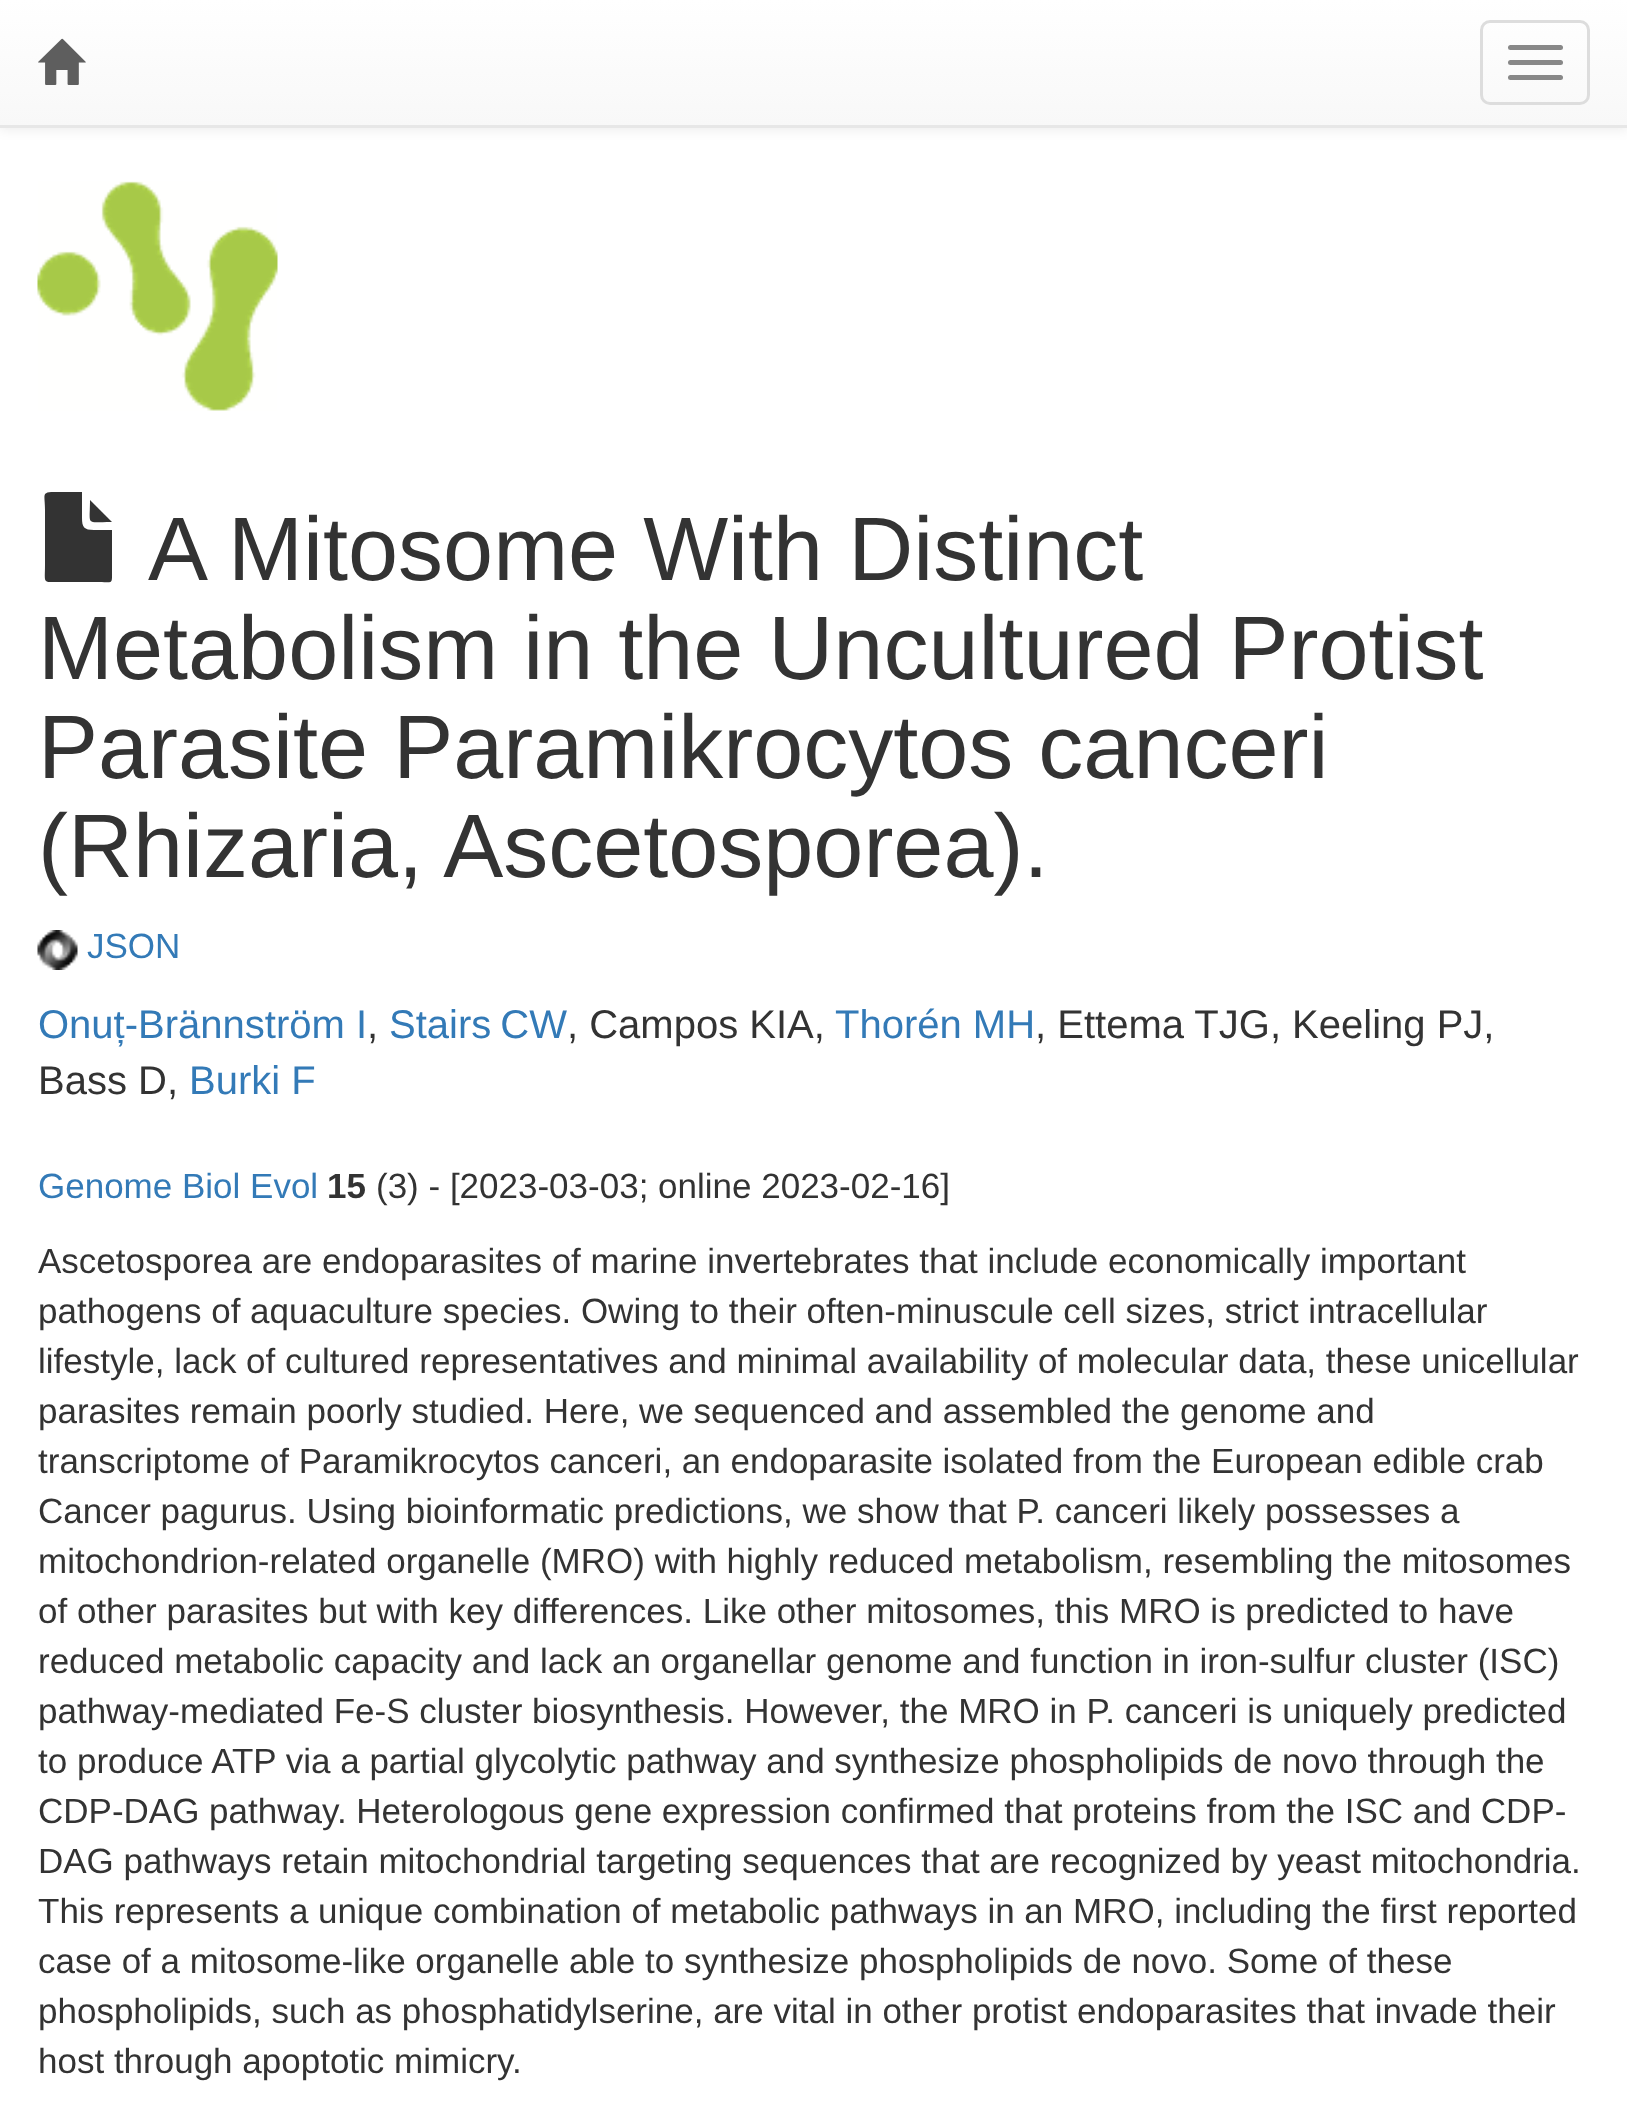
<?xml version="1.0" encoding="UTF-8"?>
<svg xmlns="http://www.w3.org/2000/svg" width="1627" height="2116">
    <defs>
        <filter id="blur1" x="-50%" y="-200%" width="200%" height="500%"><feGaussianBlur stdDeviation="6"/></filter>
        <linearGradient id="g1" gradientUnits="userSpaceOnUse" x1="814" y1="0" x2="814" y2="125"><stop offset="0" stop-color="#FFFFFF"/><stop offset="1" stop-color="#F8F8F8"/></linearGradient>
    </defs>
    <rect width="100%" height="100%" fill="#FFFFFF"/>
    <rect x="0" y="3" width="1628" height="127" fill="#000000" fill-opacity="0.07" filter="url(#blur1)"/>
    <rect x="0" y="0" width="1627" height="125" fill="url(#g1)"/>
    <rect x="0" y="125" width="1627" height="3" fill="#E7E7E7"/>
    <image x="38" y="38" width="48" height="47" href="img_01.png"/>
    <rect x="1481.5" y="21.5" width="107" height="82" rx="8.5" fill="none" stroke="#DDDDDD" stroke-width="3"/>
    <rect x="1508" y="45" width="55" height="5" rx="2.5" fill="#888888"/>
    <rect x="1508" y="60" width="55" height="5" rx="2.5" fill="#888888"/>
    <rect x="1508" y="75" width="55" height="5" rx="2.5" fill="#888888"/>
    <image x="37" y="181" width="241" height="230" href="img_02.png"/>
    <path d="M 82 492 V 518 C 82 527 84 530 94 530 H 112 V 571 C 112 585 113 582 99 582 H 59 C 42 582 45 584 45 565 V 510 C 45 495 41 492 54 492 Z M 112 522 C 85 522 90 527 90 500 Z" fill="#333333"/>
    <text x="148" y="580" font-family="Liberation Sans" font-size="90" fill="#333333">A Mitosome With Distinct</text>
    <text font-family="Liberation Sans" font-size="90" fill="#333333">
        <tspan x="38" y="679">Metabolism in the Uncultured Protist</tspan>
        <tspan x="38" y="778">Parasite Paramikrocytos canceri</tspan>
        <tspan x="38" y="877">(Rhizaria, Ascetosporea).</tspan>
    </text>
    <image x="37" y="930" width="41" height="40" href="img_03.png"/>
    <text x="87" y="958" font-family="Liberation Sans" font-size="35" fill="#337AB7">JSON</text>
    <text x="38" y="1038" font-family="Liberation Sans" font-size="40" fill="#337AB7">Onuț-Brännström I</text>
    <text x="367" y="1038" font-family="Liberation Sans" font-size="40" fill="#333333">,</text>
    <text x="389" y="1038" word-spacing="-2" font-family="Liberation Sans" font-size="40" fill="#337AB7">Stairs CW</text>
    <text x="567" y="1038" font-family="Liberation Sans" font-size="40" fill="#333333">, Campos KIA,</text>
    <text x="835" y="1038" font-family="Liberation Sans" font-size="40" fill="#337AB7">Thorén MH</text>
    <text x="1035" y="1038" font-family="Liberation Sans" font-size="40" fill="#333333">, Ettema TJG, Keeling PJ,</text>
    <text x="38" y="1094" font-family="Liberation Sans" font-size="40" fill="#333333">Bass D,</text>
    <text x="189" y="1094" font-family="Liberation Sans" font-size="40" fill="#337AB7">Burki F</text>
    <text x="38" y="1198" font-family="Liberation Sans" font-size="35" fill="#337AB7">Genome Biol Evol</text>
    <text x="327" y="1198" font-family="Liberation Sans" font-size="35" font-weight="700" fill="#333333">15</text>
    <text x="376" y="1198" font-family="Liberation Sans" font-size="35" fill="#333333">(3) - [2023-03-03; online 2023-02-16]</text>
    <text font-family="Liberation Sans" font-size="35" fill="#333333">
        <tspan x="38" y="1273">Ascetosporea are endoparasites of marine invertebrates that include economically important</tspan>
        <tspan x="38" y="1323">pathogens of aquaculture species. Owing to their often-minuscule cell sizes, strict intracellular</tspan>
        <tspan x="38" y="1373">lifestyle, lack of cultured representatives and minimal availability of molecular data, these unicellular</tspan>
        <tspan x="38" y="1423">parasites remain poorly studied. Here, we sequenced and assembled the genome and</tspan>
        <tspan x="38" y="1473">transcriptome of Paramikrocytos canceri, an endoparasite isolated from the European edible crab</tspan>
        <tspan x="38" y="1523">Cancer pagurus. Using bioinformatic predictions, we show that P. canceri likely possesses a</tspan>
        <tspan x="38" y="1573">mitochondrion-related organelle (MRO) with highly reduced metabolism, resembling the mitosomes</tspan>
        <tspan x="38" y="1623">of other parasites but with key differences. Like other mitosomes, this MRO is predicted to have</tspan>
        <tspan x="38" y="1673">reduced metabolic capacity and lack an organellar genome and function in iron-sulfur cluster (ISC)</tspan>
        <tspan x="38" y="1723">pathway-mediated Fe-S cluster biosynthesis. However, the MRO in P. canceri is uniquely predicted</tspan>
        <tspan x="38" y="1773">to produce ATP via a partial glycolytic pathway and synthesize phospholipids de novo through the</tspan>
        <tspan x="38" y="1823">CDP-DAG pathway. Heterologous gene expression confirmed that proteins from the ISC and CDP-</tspan>
        <tspan x="38" y="1873">DAG pathways retain mitochondrial targeting sequences that are recognized by yeast mitochondria.</tspan>
        <tspan x="38" y="1923">This represents a unique combination of metabolic pathways in an MRO, including the first reported</tspan>
        <tspan x="38" y="1973">case of a mitosome-like organelle able to synthesize phospholipids de novo. Some of these</tspan>
        <tspan x="38" y="2023">phospholipids, such as phosphatidylserine, are vital in other protist endoparasites that invade their</tspan>
        <tspan x="38" y="2073">host through apoptotic mimicry.</tspan>
    </text>
</svg>
